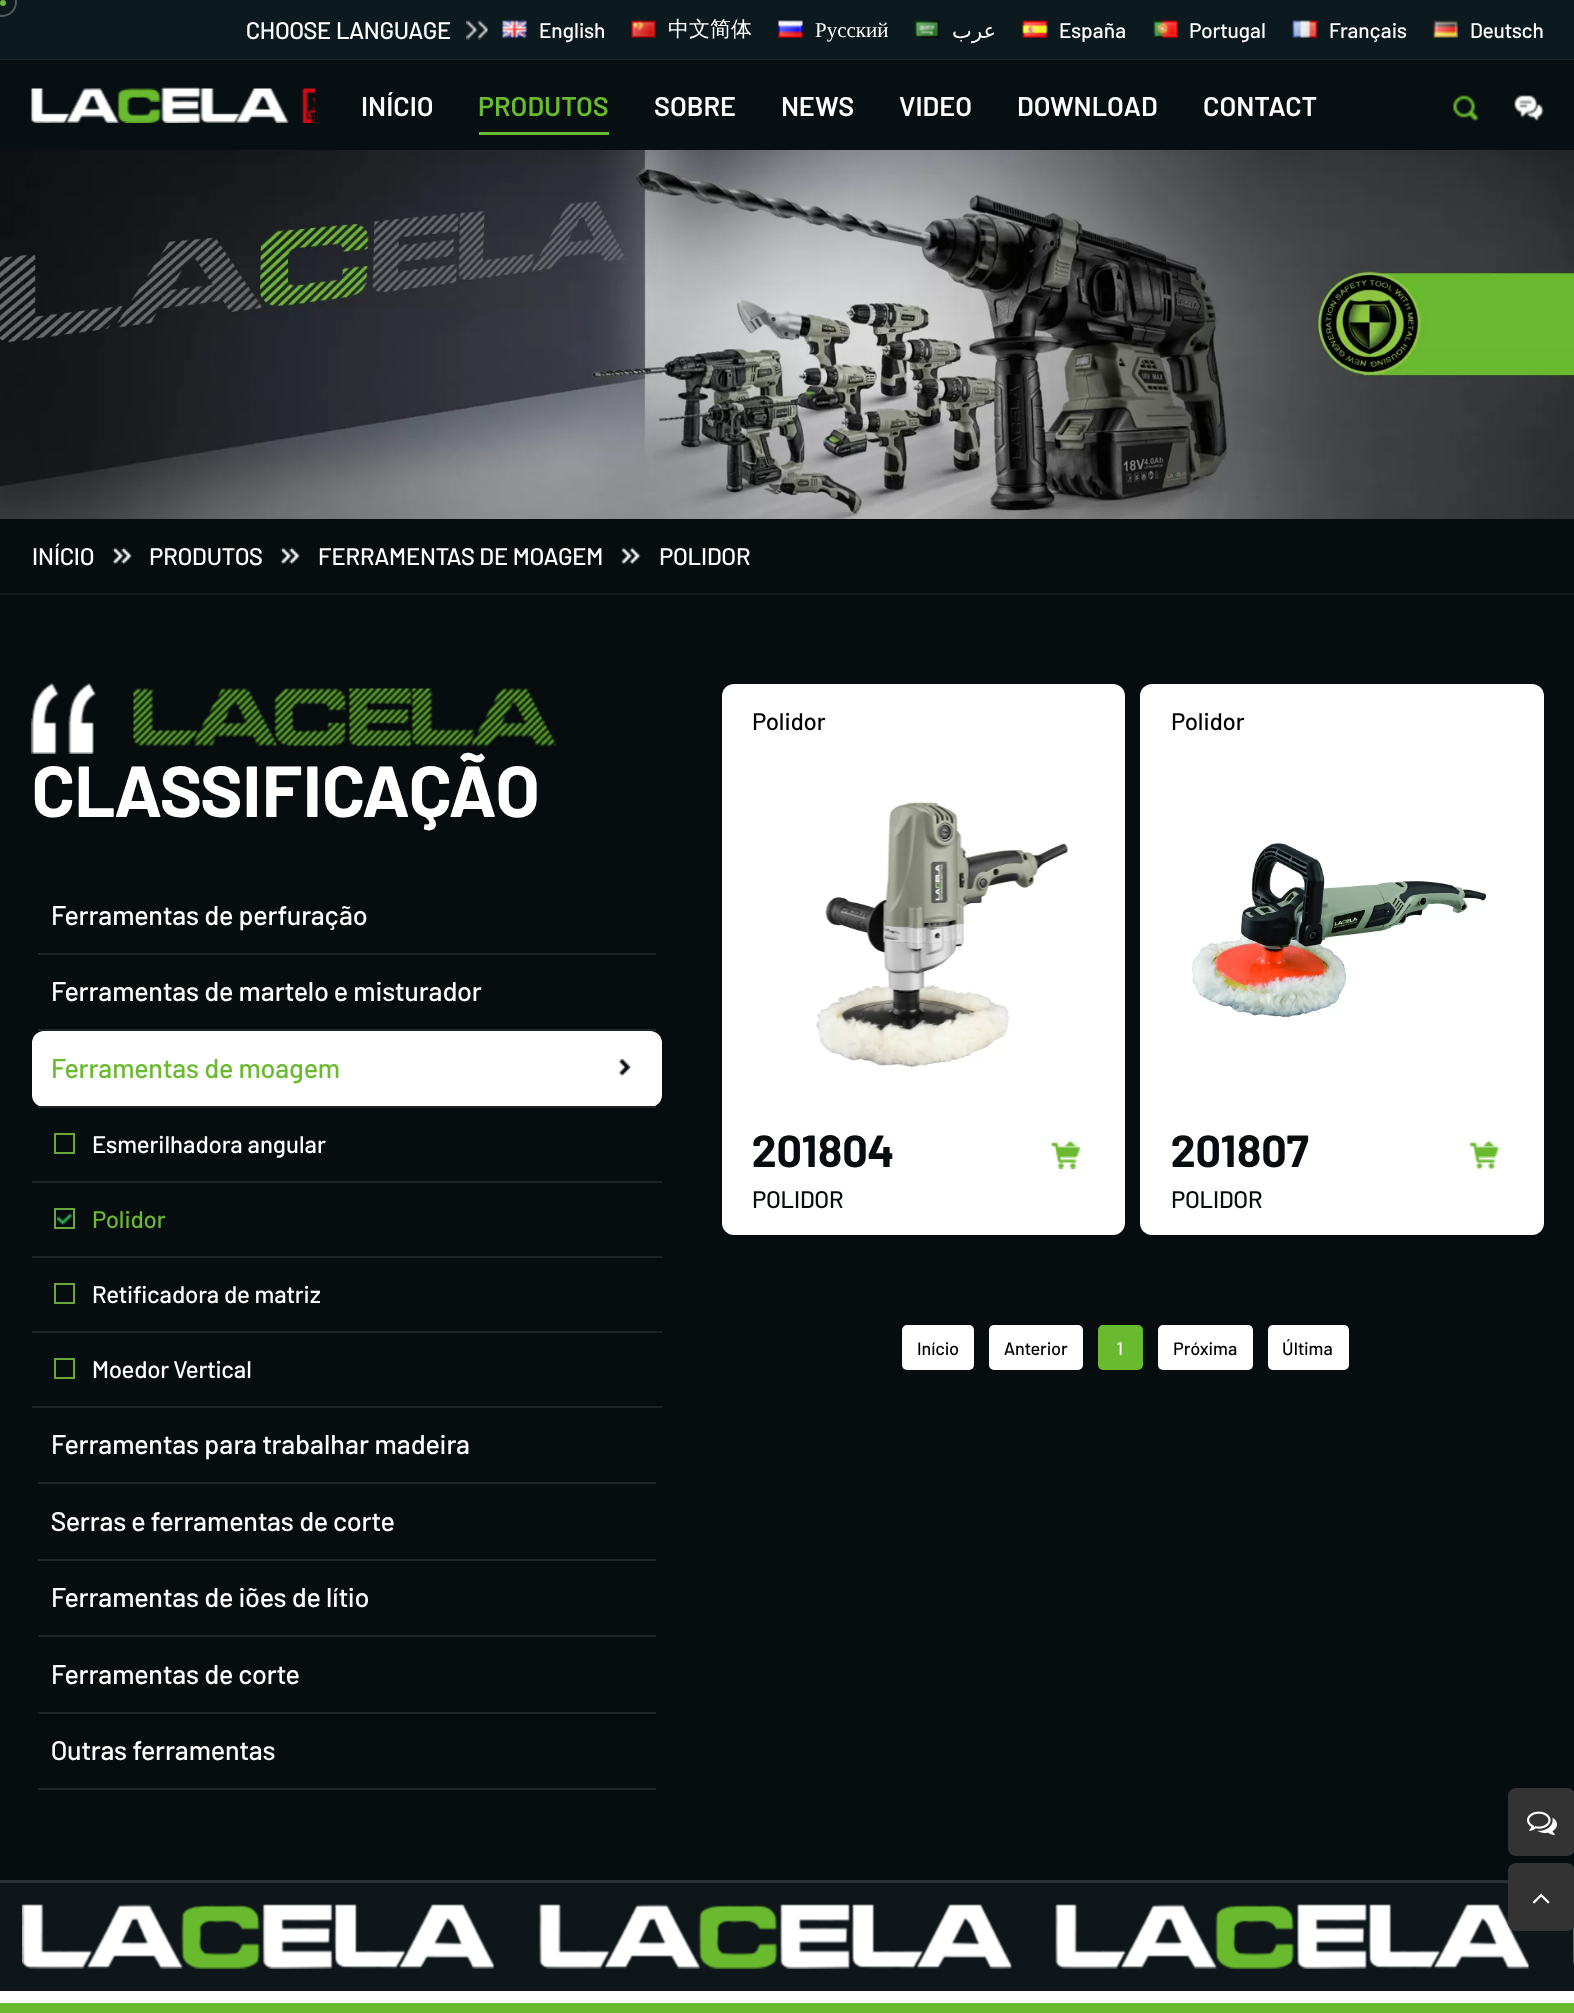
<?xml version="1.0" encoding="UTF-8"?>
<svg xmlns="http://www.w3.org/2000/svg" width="1574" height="2013">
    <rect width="100%" height="100%" fill="#070C0E"/>
    <rect x="0" y="0" width="1574" height="59" fill="#0C191E"/>
    <circle cx="3" cy="3" r="3" fill="#69BA2E"/>
    <circle cx="2" cy="2" r="14" fill="none" stroke="#545B5D" stroke-width="2"/>
    <rect x="0" y="59" width="1574" height="1" fill="#182529"/>
    <text x="246" y="39" font-family="Barlow" font-size="24" font-weight="500" fill="#FFFFFF">CHOOSE LANGUAGE</text>
    <image x="466" y="20" width="22" height="20" href="img_01.png"/>
    <image x="502" y="20" width="25" height="18" href="img_02.png"/>
    <text x="539" y="38" font-family="Barlow" font-size="21" font-weight="500" fill="#FFFFFF">English</text>
    <image x="631" y="20" width="25" height="18" href="img_03.png"/>
    <text x="668" y="36" font-family="WenQuanYi Zen Hei" font-size="21" font-weight="500" fill="#FFFFFF">中文简体</text>
    <image x="778" y="20" width="25" height="18" href="img_04.png"/>
    <text x="815" y="37" font-family="Liberation Serif" font-size="21" fill="#FFFFFF">Русский</text>
    <image x="914" y="20" width="26" height="18" href="img_05.png"/>
    <text x="996" y="38" font-family="DejaVu Sans" font-size="21" direction="rtl" fill="#FFFFFF">عرب</text>
    <image x="1022" y="20" width="26" height="18" href="img_06.png"/>
    <text x="1059" y="38" font-family="Barlow" font-size="21" font-weight="500" fill="#FFFFFF">España</text>
    <image x="1153" y="20" width="25" height="18" href="img_07.png"/>
    <text x="1189" y="38" font-family="Barlow" font-size="21" font-weight="500" fill="#FFFFFF">Portugal</text>
    <image x="1292" y="20" width="26" height="18" href="img_08.png"/>
    <text x="1329" y="38" font-family="Barlow" font-size="21" font-weight="500" fill="#FFFFFF">Français</text>
    <image x="1433" y="20" width="25" height="18" href="img_09.png"/>
    <text x="1470" y="38" font-family="Barlow" font-size="21" font-weight="500" fill="#FFFFFF">Deutsch</text>
    <rect x="0" y="60" width="1574" height="90" fill="#070F12"/>
    <image x="31" y="87" width="258" height="36" href="img_10.png"/>
    <image x="302" y="88" width="13" height="35" href="img_11.png"/>
    <text x="361" y="116" font-family="Barlow" font-size="27" font-weight="600" fill="#FFFFFF">INÍCIO</text>
    <text x="478" y="116" font-family="Barlow" font-size="27" font-weight="600" fill="#69BA2E">PRODUTOS</text>
    <rect x="479" y="132" width="130" height="3" fill="#69BA2E"/>
    <text x="654" y="116" font-family="Barlow" font-size="27" font-weight="600" fill="#FFFFFF">SOBRE</text>
    <text x="781" y="116" font-family="Barlow" font-size="27" font-weight="600" fill="#FFFFFF">NEWS</text>
    <text x="899" y="116" font-family="Barlow" font-size="27" font-weight="600" fill="#FFFFFF">VIDEO</text>
    <text x="1017" y="116" font-family="Barlow" font-size="27" font-weight="600" fill="#FFFFFF">DOWNLOAD</text>
    <text x="1203" y="116" font-family="Barlow" font-size="27" font-weight="600" fill="#FFFFFF">CONTACT</text>
    <image x="1453" y="95" width="25" height="26" href="img_12.png"/>
    <image x="1514" y="95" width="30" height="26" href="img_13.png"/>
    <image x="0" y="150" width="1574" height="369" href="img_14.png"/>
    <rect x="0" y="593" width="1574" height="2" fill="#14181A"/>
    <text x="32" y="565" font-family="Barlow" font-size="24" font-weight="500" fill="#FFFFFF">INÍCIO</text>
    <image x="112" y="547" width="20" height="17" href="img_15.png"/>
    <text x="149" y="565" font-family="Barlow" font-size="24" font-weight="500" fill="#FFFFFF">PRODUTOS</text>
    <image x="280" y="547" width="20" height="17" href="img_15.png"/>
    <text x="318" y="565" font-family="Barlow" font-size="24" font-weight="500" fill="#FFFFFF">FERRAMENTAS DE MOAGEM</text>
    <image x="621" y="547" width="20" height="17" href="img_16.png"/>
    <text x="659" y="565" font-family="Barlow" font-size="24" font-weight="500" fill="#FFFFFF">POLIDOR</text>
    <image x="31" y="683" width="65" height="71" href="img_17.png"/>
    <image x="133" y="688" width="423" height="59" href="img_18.png"/>
    <text x="32" y="817" font-family="Barlow" font-size="72" font-weight="700" fill="#FFFFFF">CLASSIFICAÇÃO</text>
    <rect x="38" y="953" width="618" height="2" fill="#202527"/>
    <text x="51" y="925" font-family="Barlow" font-size="27" font-weight="500" fill="#FFFFFF">Ferramentas de perfuração</text>
    <rect x="38" y="1029" width="618" height="2" fill="#202527"/>
    <text x="51" y="1001" font-family="Barlow" font-size="27" font-weight="500" fill="#FFFFFF">Ferramentas de martelo e misturador</text>
    <rect x="32" y="1031" width="630" height="76" rx="12" fill="#FFFFFF"/>
    <image x="619" y="1059" width="12" height="17" href="img_19.png"/>
    <rect x="38" y="1106" width="618" height="2" fill="#202527"/>
    <text x="51" y="1078" font-family="Barlow" font-size="27" font-weight="500" fill="#69BA2E">Ferramentas de moagem</text>
    <rect x="32" y="1181" width="630" height="2" fill="#1E2325"/>
    <rect x="55" y="1134" width="19" height="19" fill="none" stroke="#68A83F" stroke-width="2"/>
    <text x="92" y="1153" font-family="Barlow" font-size="24" font-weight="500" fill="#FFFFFF">Esmerilhadora angular</text>
    <rect x="32" y="1256" width="630" height="2" fill="#1E2325"/>
    <image x="57" y="1213" width="15" height="12" href="img_20.png"/>
    <rect x="55" y="1209" width="19" height="19" fill="none" stroke="#68A83F" stroke-width="2"/>
    <text x="92" y="1228" font-family="Barlow" font-size="24" font-weight="500" fill="#69BA2E">Polidor</text>
    <rect x="32" y="1331" width="630" height="2" fill="#1E2325"/>
    <rect x="55" y="1284" width="19" height="19" fill="none" stroke="#68A83F" stroke-width="2"/>
    <text x="92" y="1303" font-family="Barlow" font-size="24" font-weight="500" fill="#FFFFFF">Retificadora de matriz</text>
    <rect x="32" y="1406" width="630" height="2" fill="#1E2325"/>
    <rect x="55" y="1359" width="19" height="19" fill="none" stroke="#68A83F" stroke-width="2"/>
    <text x="92" y="1378" font-family="Barlow" font-size="24" font-weight="500" fill="#FFFFFF">Moedor Vertical</text>
    <rect x="38" y="1482" width="618" height="2" fill="#202527"/>
    <text x="51" y="1454" font-family="Barlow" font-size="27" font-weight="500" fill="#FFFFFF">Ferramentas para trabalhar madeira</text>
    <rect x="38" y="1559" width="618" height="2" fill="#202527"/>
    <text x="51" y="1531" font-family="Barlow" font-size="27" font-weight="500" fill="#FFFFFF">Serras e ferramentas de corte</text>
    <rect x="38" y="1635" width="618" height="2" fill="#202527"/>
    <text x="51" y="1607" font-family="Barlow" font-size="27" font-weight="500" fill="#FFFFFF">Ferramentas de iões de lítio</text>
    <rect x="38" y="1712" width="618" height="2" fill="#202527"/>
    <text x="51" y="1684" font-family="Barlow" font-size="27" font-weight="500" fill="#FFFFFF">Ferramentas de corte</text>
    <rect x="38" y="1788" width="618" height="2" fill="#202527"/>
    <text x="51" y="1760" font-family="Barlow" font-size="27" font-weight="500" fill="#FFFFFF">Outras ferramentas</text>
    <rect x="722" y="684" width="403" height="551" rx="12" fill="#FFFFFF"/>
    <text x="752" y="730" font-family="Barlow" font-size="24" font-weight="500" fill="#000000">Polidor</text>
    <image x="816" y="802" width="252" height="265" href="img_21.png"/>
    <text x="752" y="1167" font-family="Barlow" font-size="45" font-weight="700" fill="#070C0E">201804</text>
    <image x="1051" y="1141" width="29" height="28" href="img_22.png"/>
    <text x="752" y="1208" font-family="Barlow" font-size="24" font-weight="500" fill="#070C0E">POLIDOR</text>
    <rect x="1140" y="684" width="404" height="551" rx="12" fill="#FFFFFF"/>
    <text x="1171" y="730" font-family="Barlow" font-size="24" font-weight="500" fill="#000000">Polidor</text>
    <image x="1192" y="843" width="294" height="174" href="img_23.png"/>
    <text x="1171" y="1167" font-family="Barlow" font-size="45" font-weight="700" fill="#070C0E">201807</text>
    <image x="1469" y="1141" width="30" height="28" href="img_24.png"/>
    <text x="1171" y="1208" font-family="Barlow" font-size="24" font-weight="500" fill="#070C0E">POLIDOR</text>
    <rect x="902" y="1325" width="72" height="45" rx="5" fill="#FFFFFF"/>
    <text x="917" y="1355" font-family="Barlow" font-size="18" font-weight="500" fill="#000000">Início</text>
    <rect x="989" y="1325" width="94" height="45" rx="5" fill="#FFFFFF"/>
    <text x="1004" y="1355" font-family="Barlow" font-size="18" font-weight="500" fill="#000000">Anterior</text>
    <rect x="1098" y="1325" width="45" height="45" rx="5" fill="#69BA2E"/>
    <text x="1117" y="1355" font-family="Barlow" font-size="18" font-weight="500" fill="#FFFFFF">1</text>
    <rect x="1158" y="1325" width="95" height="45" rx="5" fill="#FFFFFF"/>
    <text x="1173" y="1355" font-family="Barlow" font-size="18" font-weight="500" fill="#000000">Próxima</text>
    <rect x="1268" y="1325" width="81" height="45" rx="5" fill="#FFFFFF"/>
    <text x="1282" y="1355" font-family="Barlow" font-size="18" font-weight="500" fill="#000000">Última</text>
    <rect x="1508" y="1788" width="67" height="68" rx="8" fill="#333333"/>
    <image x="1527" y="1811" width="30" height="25" href="img_25.png"/>
    <rect x="0" y="1883" width="1574" height="108" fill="#0E1619"/>
    <image x="1055" y="1904" width="474" height="65" href="img_29.png"/>
    <image x="1573" y="1926" width="1" height="39" href="img_30.png"/>
    <rect x="1508" y="1863" width="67" height="68" rx="8" fill="#333333"/>
    <image x="1532" y="1893" width="18" height="11" href="img_26.png"/>
    <rect x="0" y="1880" width="1508" height="3" fill="#283032"/>
    <rect x="0" y="1991" width="1574" height="12" fill="#FFFFFF"/>
    <image x="22" y="1904" width="472" height="65" href="img_27.png"/>
    <image x="539" y="1904" width="473" height="65" href="img_28.png"/>
    <rect x="0" y="2003" width="1574" height="10" fill="#69BA2E"/>
</svg>
